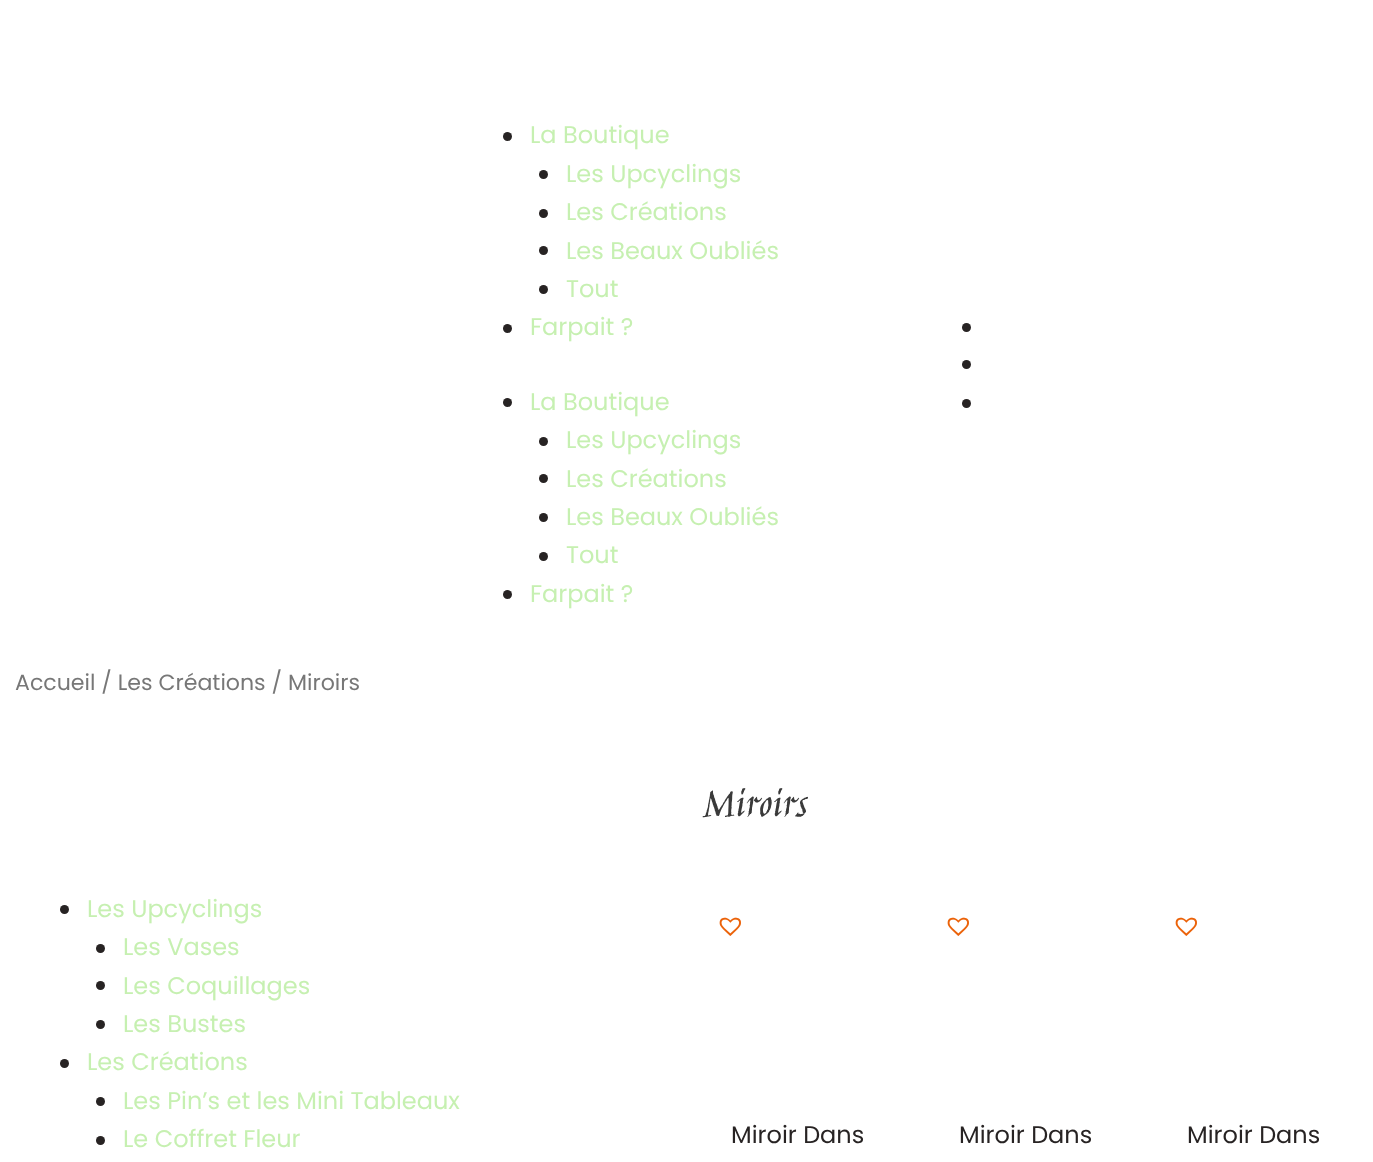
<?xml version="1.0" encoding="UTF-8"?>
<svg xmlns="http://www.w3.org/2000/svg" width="1373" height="1162">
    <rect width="100%" height="100%" fill="#FFFFFF"/>
    <circle cx="507.5" cy="136.5" r="4.5" fill="#272323"/>
    <text x="530" y="143" font-family="Poppins" font-size="24" fill="#C6F0B1">La Boutique</text>
    <circle cx="543.5" cy="174.5" r="4.5" fill="#272323"/>
    <text x="566" y="182" font-family="Poppins" font-size="24" fill="#C6F0B1">Les Upcyclings</text>
    <circle cx="543.5" cy="213.5" r="4.5" fill="#272323"/>
    <text x="566" y="220" font-family="Poppins" font-size="24" fill="#C6F0B1">Les Créations</text>
    <circle cx="543.5" cy="250.5" r="4.5" fill="#272323"/>
    <text x="566" y="259" font-family="Poppins" font-size="24" fill="#C6F0B1">Les Beaux Oubliés</text>
    <circle cx="543.5" cy="289.5" r="4.5" fill="#272323"/>
    <text x="566" y="297" font-family="Poppins" font-size="24" fill="#C6F0B1">Tout</text>
    <circle cx="507.5" cy="328.5" r="4.5" fill="#272323"/>
    <text x="530" y="335" font-family="Poppins" font-size="24" fill="#C6F0B1">Farpait ?</text>
    <circle cx="507.5" cy="402.5" r="4.5" fill="#272323"/>
    <text x="530" y="410" font-family="Poppins" font-size="24" fill="#C6F0B1">La Boutique</text>
    <circle cx="543.5" cy="441.5" r="4.5" fill="#272323"/>
    <text x="566" y="448" font-family="Poppins" font-size="24" fill="#C6F0B1">Les Upcyclings</text>
    <circle cx="543.5" cy="478.5" r="4.5" fill="#272323"/>
    <text x="566" y="487" font-family="Poppins" font-size="24" fill="#C6F0B1">Les Créations</text>
    <circle cx="543.5" cy="517.5" r="4.5" fill="#272323"/>
    <text x="566" y="525" font-family="Poppins" font-size="24" fill="#C6F0B1">Les Beaux Oubliés</text>
    <circle cx="543.5" cy="556.5" r="4.5" fill="#272323"/>
    <text x="566" y="563" font-family="Poppins" font-size="24" fill="#C6F0B1">Tout</text>
    <circle cx="507.5" cy="594.5" r="4.5" fill="#272323"/>
    <text x="530" y="602" font-family="Poppins" font-size="24" fill="#C6F0B1">Farpait ?</text>
    <circle cx="966.5" cy="327.5" r="4.5" fill="#272323"/>
    <circle cx="966.5" cy="364.5" r="4.5" fill="#272323"/>
    <circle cx="966.5" cy="403.5" r="4.5" fill="#272323"/>
    <text x="15" y="690" font-family="Poppins" font-size="22.1" fill="#777777">Accueil / Les Créations / Miroirs</text>
    <text x="702" y="816" font-family="Jim Nightshade" font-size="45" fill="#3A3A3A">Miroirs</text>
    <circle cx="64.5" cy="909.5" r="4.5" fill="#272323"/>
    <text x="87" y="917" font-family="Poppins" font-size="24" fill="#C6F0B1">Les Upcyclings</text>
    <circle cx="100.5" cy="948.5" r="4.5" fill="#272323"/>
    <text x="123" y="955" font-family="Poppins" font-size="24" fill="#C6F0B1">Les Vases</text>
    <circle cx="100.5" cy="985.5" r="4.5" fill="#272323"/>
    <text x="123" y="994" font-family="Poppins" font-size="24" fill="#C6F0B1">Les Coquillages</text>
    <circle cx="100.5" cy="1024.5" r="4.5" fill="#272323"/>
    <text x="123" y="1032" font-family="Poppins" font-size="24" fill="#C6F0B1">Les Bustes</text>
    <circle cx="64.5" cy="1063.5" r="4.5" fill="#272323"/>
    <text x="87" y="1070" font-family="Poppins" font-size="24" fill="#C6F0B1">Les Créations</text>
    <circle cx="100.5" cy="1101.5" r="4.5" fill="#272323"/>
    <text x="123" y="1109" font-family="Poppins" font-size="24" fill="#C6F0B1">Les Pin’s et les Mini Tableaux</text>
    <circle cx="100.5" cy="1140.5" r="4.5" fill="#272323"/>
    <text x="123" y="1147" font-family="Poppins" font-size="24" fill="#C6F0B1">Le Coffret Fleur</text>
    <image x="719" y="917" width="22" height="19" href="img_01.png"/>
    <text x="731" y="1143" font-family="Poppins" font-size="24" fill="#272323">Miroir Dans</text>
    <image x="947" y="917" width="22" height="19" href="img_01.png"/>
    <text x="959" y="1143" font-family="Poppins" font-size="24" fill="#272323">Miroir Dans</text>
    <image x="1175" y="917" width="22" height="19" href="img_01.png"/>
    <text x="1187" y="1143" font-family="Poppins" font-size="24" fill="#272323">Miroir Dans</text>
</svg>
